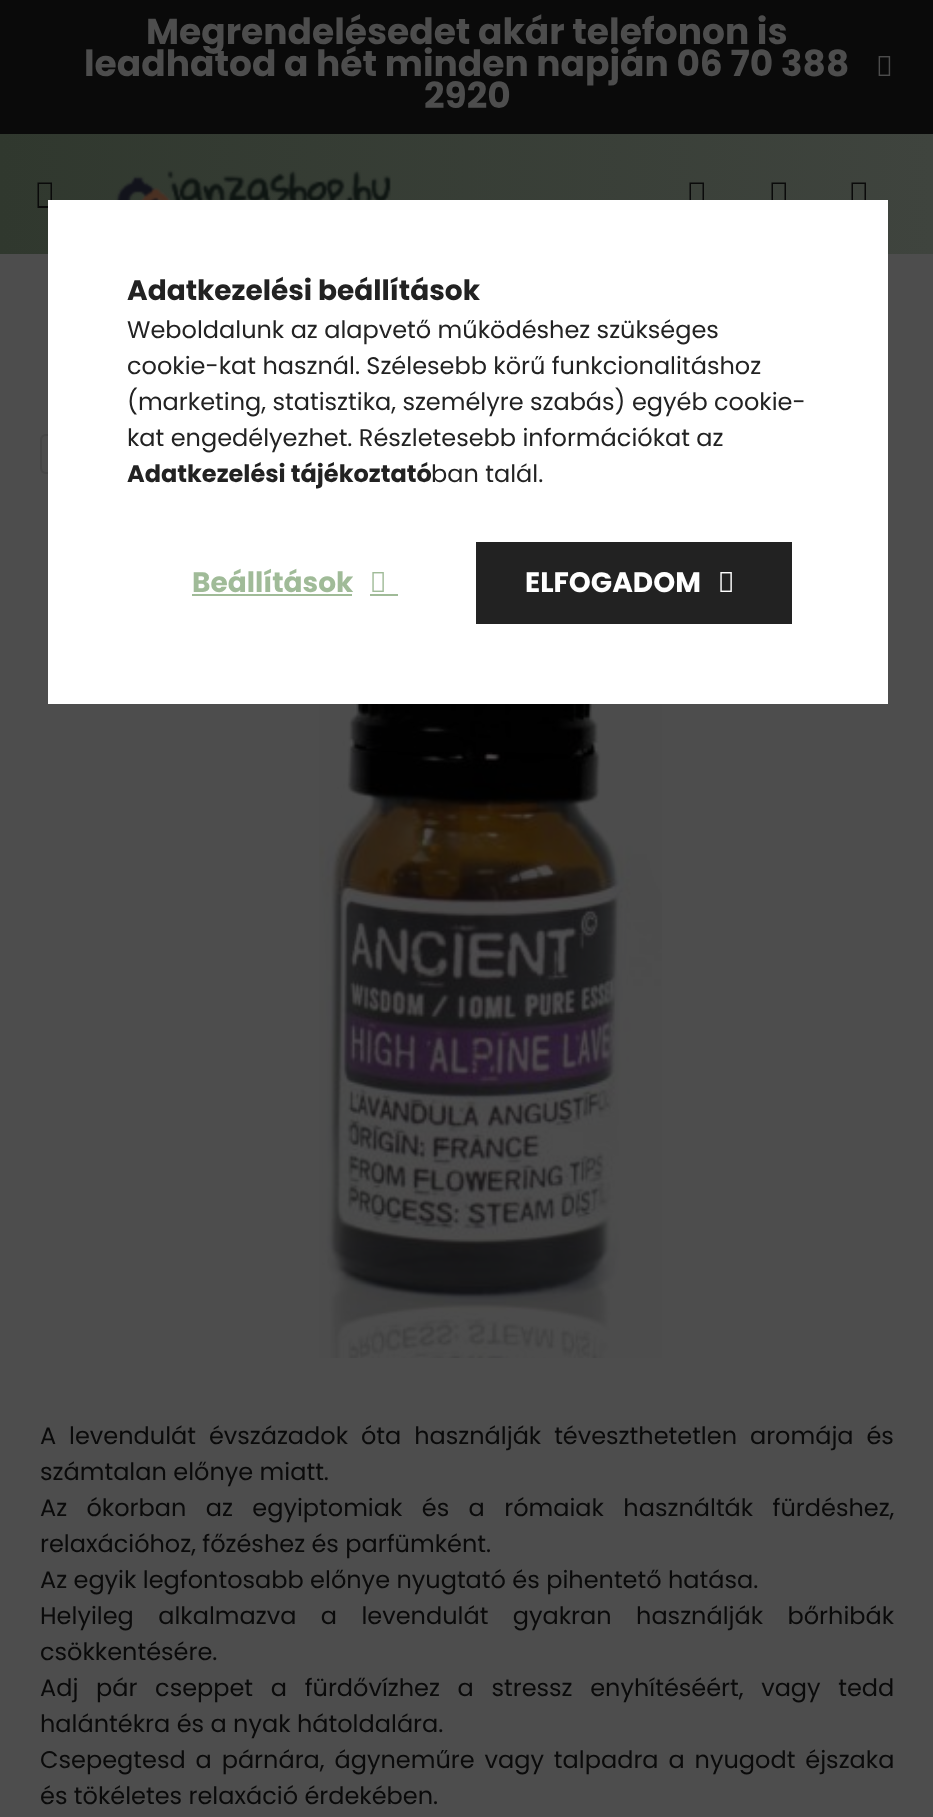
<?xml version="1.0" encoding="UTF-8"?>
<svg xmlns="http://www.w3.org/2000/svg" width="933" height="1817">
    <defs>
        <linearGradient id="g1" gradientUnits="userSpaceOnUse" x1="0" y1="194" x2="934" y2="194"><stop offset="0" stop-color="#30382E"/><stop offset="1" stop-color="#3F443E"/></linearGradient>
        <linearGradient id="g2" gradientUnits="userSpaceOnUse" x1="-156" y1="583" x2="792" y2="583"><stop offset="0" stop-color="#A0BB98"/><stop offset="0.33" stop-color="#D3E1CF"/><stop offset="0.67" stop-color="#222222"/><stop offset="1" stop-color="#222222"/></linearGradient>
    </defs>
    <rect width="100%" height="100%" fill="#4D4D4D"/>
    <rect x="0" y="0" width="933" height="134" fill="#0A0A0A"/>
    <text x="146" y="44" font-family="Poppins" font-size="36" font-weight="700" fill="#4D4D4D">Megrendelésedet akár telefonon is</text>
    <text x="84" y="76" font-family="Poppins" font-size="36" font-weight="700" fill="#4D4D4D">leadhatod a hét minden napján 06 70 388</text>
    <text x="424" y="108" font-family="Poppins" font-size="36" font-weight="700" fill="#4D4D4D">2920</text>
    <image x="878" y="56" width="13" height="20" href="img_01.png"/>
    <rect x="0" y="134" width="933" height="120" fill="url(#g1)"/>
    <path d="M 37.5 208 V 182.5 H 52 V 208 Z M 39 206 H 50.5 V 184 H 39 Z" fill="#0A0A0A"/>
    <image x="115" y="170" width="276" height="30" href="img_02.png"/>
    <path d="M 689.5 208 V 182.5 H 704 V 208 Z M 691 206 H 702.5 V 184 H 691 Z" fill="#0A0A0A"/>
    <path d="M 771.5 208 V 182.5 H 786 V 208 Z M 773 206 H 784.5 V 184 H 773 Z" fill="#0A0A0A"/>
    <path d="M 851.5 208 V 182.5 H 866 V 208 Z M 853 206 H 864.5 V 184 H 853 Z" fill="#0A0A0A"/>
    <rect x="41" y="435" width="58" height="38" rx="5" fill="none" stroke="#464646" stroke-width="2"/>
    <image x="319" y="704" width="343" height="654" href="img_03.png"/>
    <text font-family="Poppins" font-size="24" fill="#0A0A0A">
        <tspan x="40" y="1444" word-spacing="6.5">A levendulát évszázadok óta használják téveszthetetlen aromája és</tspan>
        <tspan x="40" y="1480">számtalan előnye miatt.</tspan>
        <tspan x="40" y="1516" word-spacing="13">Az ókorban az egyiptomiak és a rómaiak használták fürdéshez,</tspan>
        <tspan x="40" y="1552">relaxációhoz, főzéshez és parfümként.</tspan>
        <tspan x="40" y="1588">Az egyik legfontosabb előnye nyugtató és pihentető hatása.</tspan>
        <tspan x="40" y="1624" word-spacing="18">Helyileg alkalmazva a levendulát gyakran használják bőrhibák</tspan>
        <tspan x="40" y="1660">csökkentésére.</tspan>
        <tspan x="40" y="1696" word-spacing="11.25">Adj pár cseppet a fürdővízhez a stressz enyhítéséért, vagy tedd</tspan>
        <tspan x="40" y="1732">halántékra és a nyak hátoldalára.</tspan>
        <tspan x="40" y="1768" word-spacing="3.5">Csepegtesd a párnára, ágyneműre vagy talpadra a nyugodt éjszaka</tspan>
        <tspan x="40" y="1804">és tökéletes relaxáció érdekében.</tspan>
    </text>
    <rect x="48" y="200" width="840" height="504" fill="#FFFFFF"/>
    <text x="127" y="300" font-family="Poppins" font-size="28" font-weight="700" fill="#222222">Adatkezelési beállítások</text>
    <text font-family="Poppins" font-size="24" fill="#222222">
        <tspan x="127" y="338">Weboldalunk az alapvető működéshez szükséges</tspan>
        <tspan x="127" y="374">cookie-kat használ. Szélesebb körű funkcionalitáshoz</tspan>
        <tspan x="127" y="410">(marketing, statisztika, személyre szabás) egyéb cookie-</tspan>
        <tspan x="127" y="446">kat engedélyezhet. Részletesebb információkat az</tspan>
    </text>
    <text x="127" y="482" font-family="Poppins" font-size="24" font-weight="700" fill="#222222">Adatkezelési tájékoztató</text>
    <text x="431" y="482" font-family="Poppins" font-size="24" fill="#222222">ban talál.</text>
    <text x="192" y="592" font-family="Poppins" font-size="28" font-weight="700" fill="#A0BB98">Beállítások</text>
    <rect x="192" y="594" width="160" height="2" fill="#A0BB98"/>
    <image x="372" y="572" width="12" height="20" href="img_04.png"/>
    <rect x="370" y="594" width="28" height="2" fill="#A0BB98"/>
    <rect x="476" y="542" width="316" height="82" fill="url(#g2)"/>
    <text x="525" y="592" font-family="Poppins" font-size="28" font-weight="700" fill="#FFFFFF">ELFOGADOM</text>
    <image x="720" y="572" width="12" height="20" href="img_05.png"/>
</svg>
